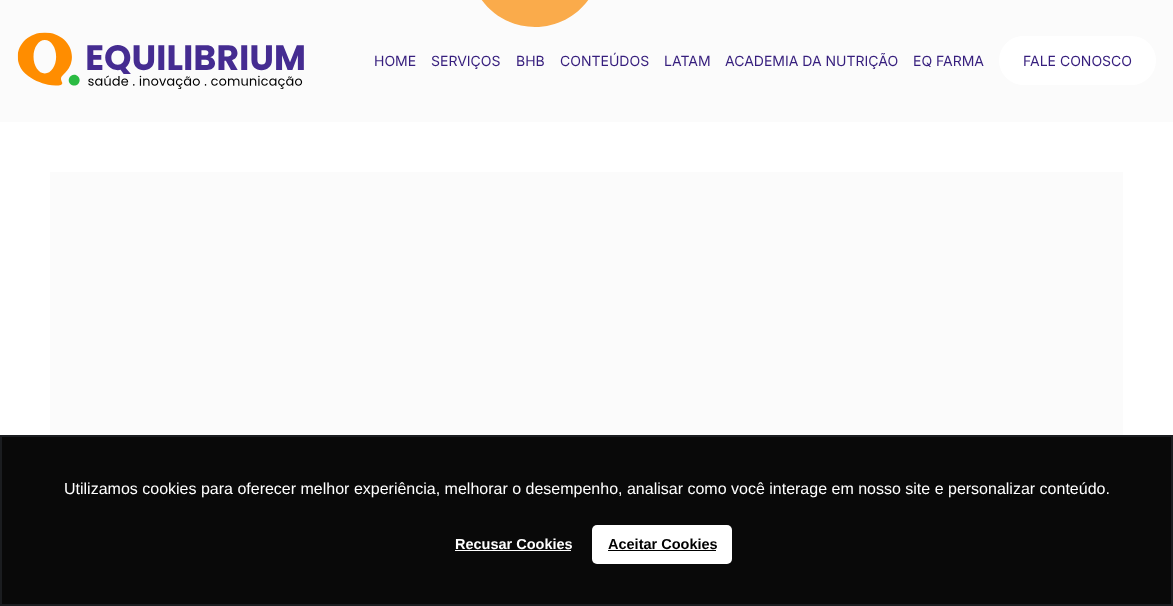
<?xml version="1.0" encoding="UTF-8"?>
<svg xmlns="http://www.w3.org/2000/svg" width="1173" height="606">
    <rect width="100%" height="100%" fill="#FBFBFB"/>
    <path d="M 469 0 H 601 V -39 C 601 -2.5 571.5 27 535 27 C 498.5 27 469 -2.5 469 -39 Z" fill="#FAAB4B"/>
    <image x="17" y="32" width="287" height="57" href="img_01.png"/>
    <text x="374" y="66" font-family="Inter" font-size="14" fill="#361E7D">HOME</text>
    <text x="431" y="66" font-family="Inter" font-size="14" fill="#361E7D">SERVIÇOS</text>
    <text x="516" y="66" font-family="Inter" font-size="14" fill="#361E7D">BHB</text>
    <text x="560" y="66" font-family="Inter" font-size="14" fill="#361E7D">CONTEÚDOS</text>
    <text x="664" y="66" font-family="Inter" font-size="14" fill="#361E7D">LATAM</text>
    <text x="725" y="66" font-family="Inter" font-size="14" fill="#361E7D">ACADEMIA DA NUTRIÇÃO</text>
    <text x="913" y="66" font-family="Inter" font-size="14" fill="#361E7D">EQ FARMA</text>
    <rect x="999" y="36" width="157" height="49" rx="24.5" fill="#FFFFFF"/>
    <text x="1023" y="66" font-family="Inter" font-size="14" fill="#361E7D">FALE CONOSCO</text>
    <rect x="50" y="122" width="1073" height="50" fill="#FFFFFF"/>
    <rect x="1123" y="122" width="50" height="313" fill="#FFFFFF"/>
    <rect x="0" y="122" width="50" height="313" fill="#FFFFFF"/>
    <rect x="1" y="436" width="1171" height="169" fill="#090909" stroke="#1B1D20" stroke-width="2"/>
    <text x="64" y="494" font-family="Liberation Sans" font-size="16" fill="#FFFFFF">Utilizamos cookies para oferecer melhor experiência, melhorar o desempenho, analisar como você interage em nosso site e personalizar conteúdo.</text>
    <text x="455" y="549" font-family="Liberation Sans" font-size="14.5" font-weight="700" fill="#FFFFFF">Recusar Cookies</text>
    <rect x="455" y="550" width="116" height="1" fill="#FFFFFF"/>
    <rect x="592" y="525" width="140" height="39" rx="5" fill="#FFFFFF"/>
    <text x="608" y="549" font-family="Liberation Sans" font-size="14.5" font-weight="700" fill="#000000">Aceitar Cookies</text>
    <rect x="608" y="550" width="108" height="1" fill="#000000"/>
</svg>
